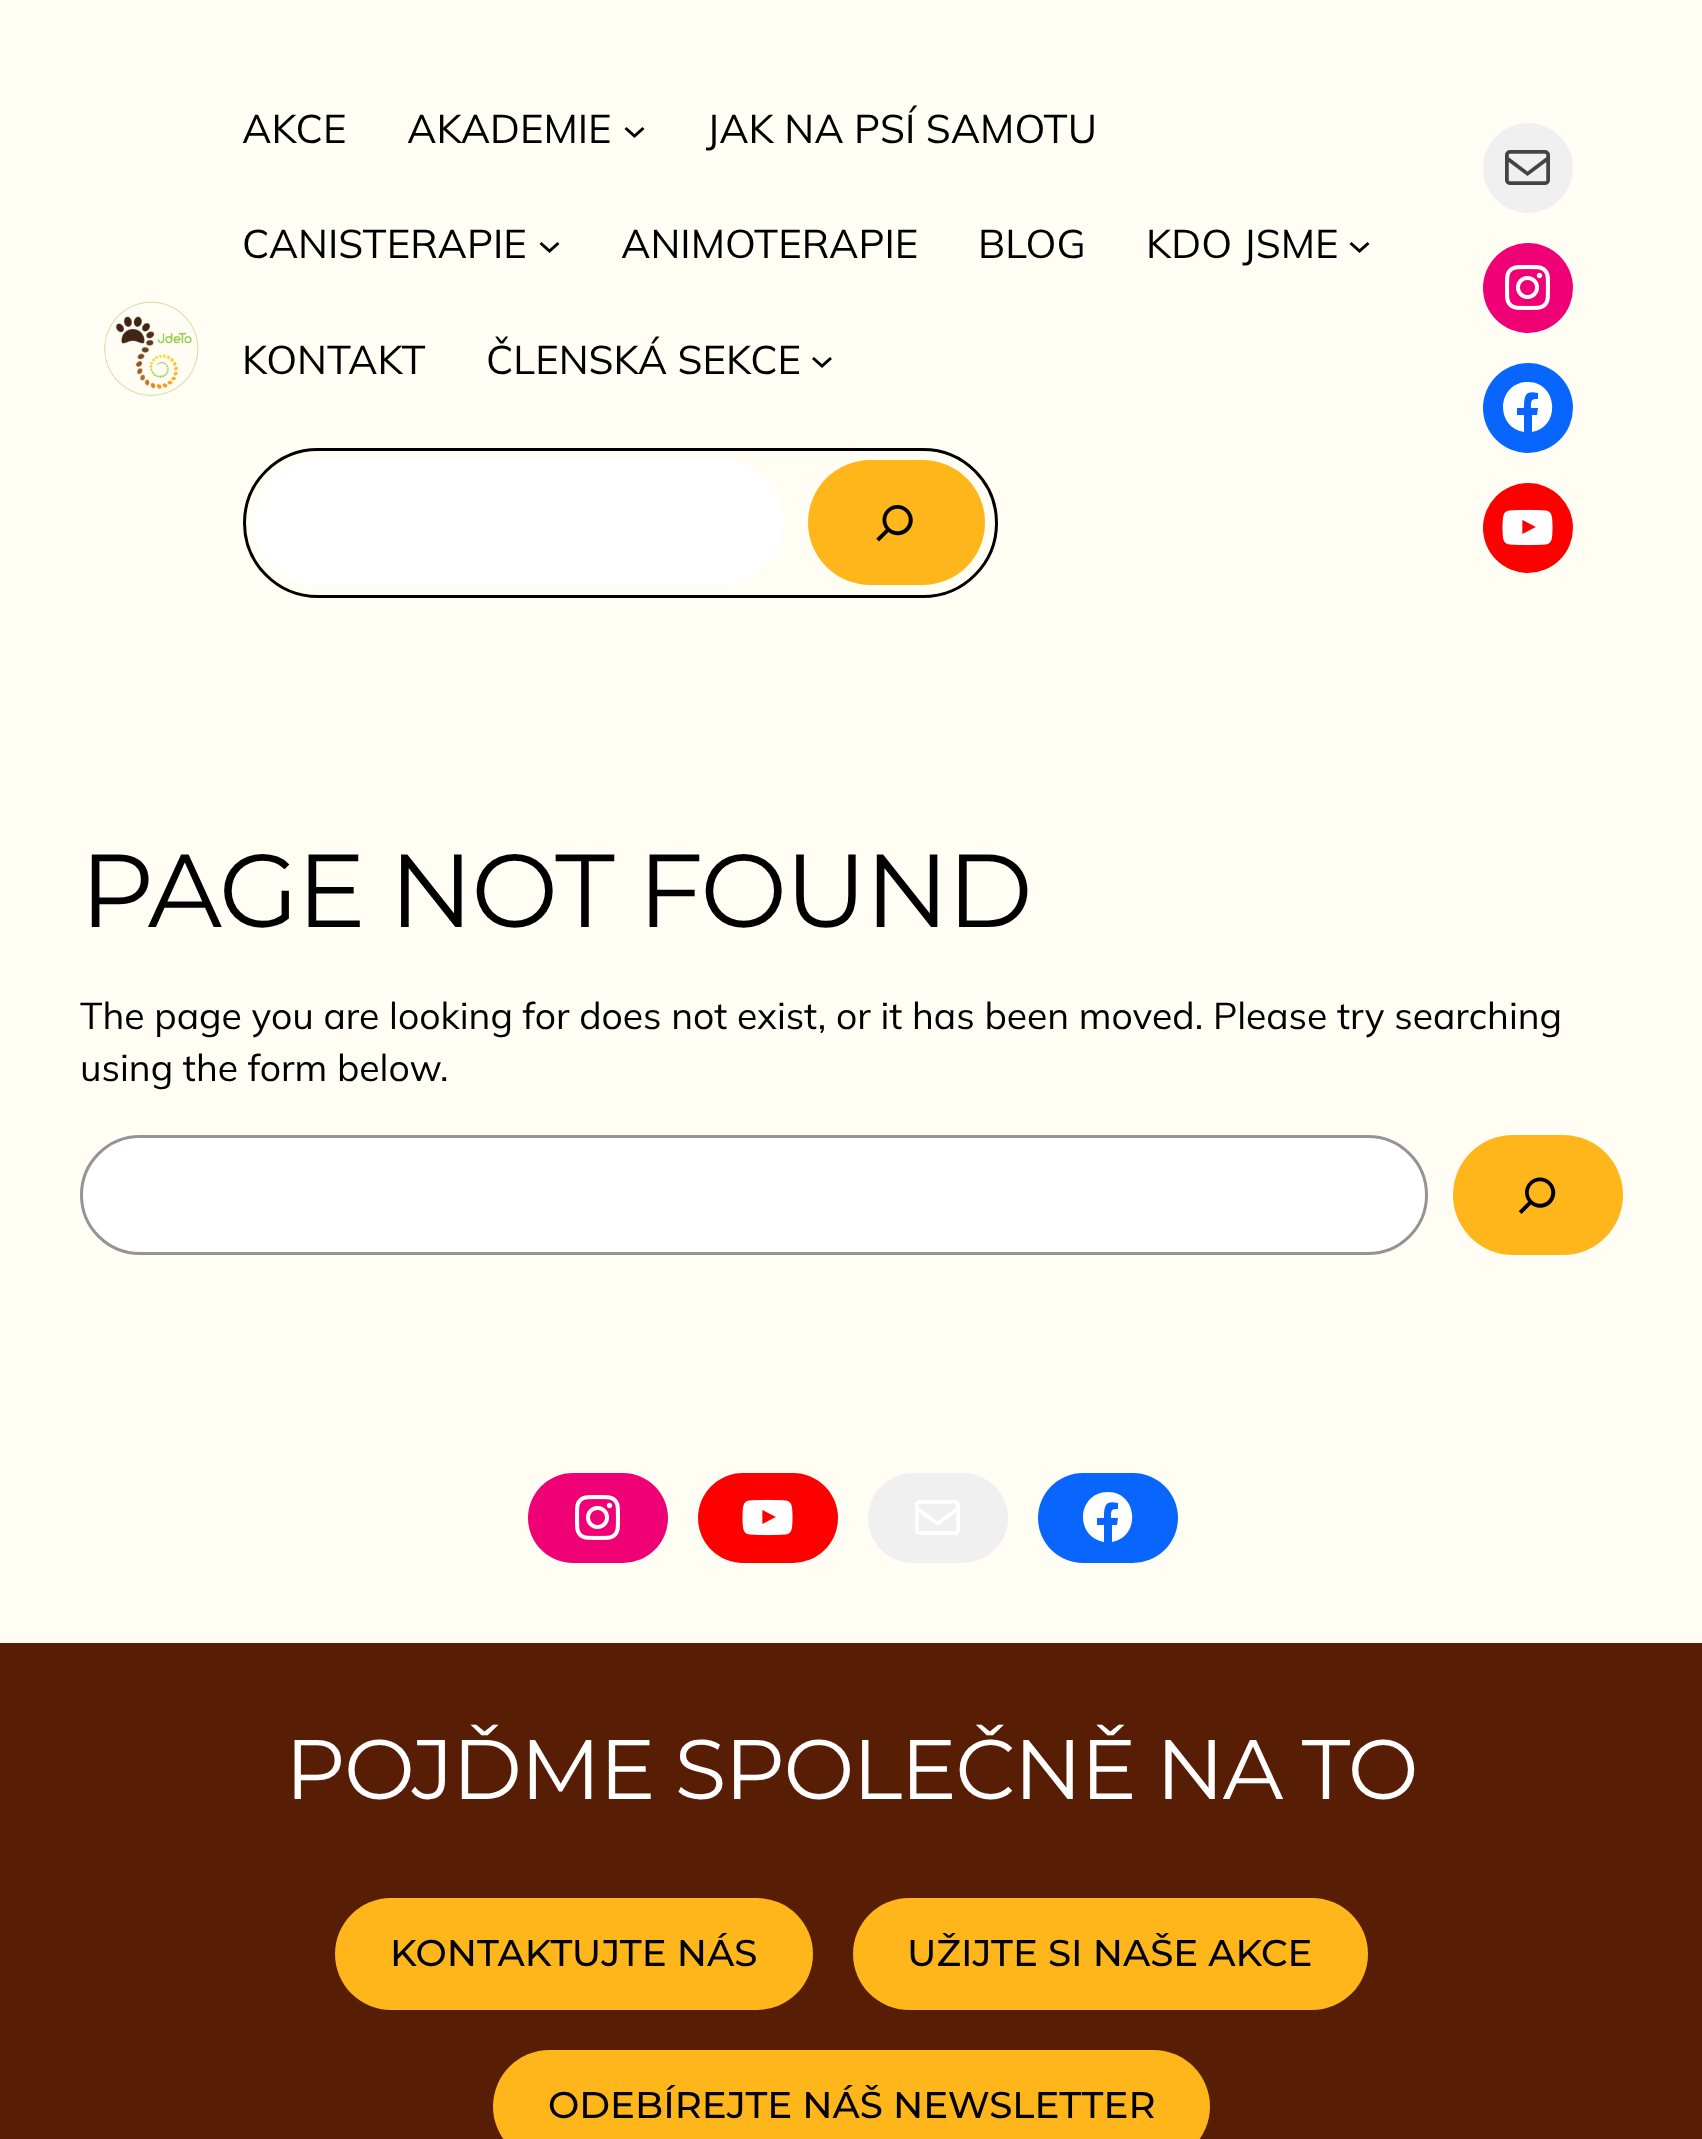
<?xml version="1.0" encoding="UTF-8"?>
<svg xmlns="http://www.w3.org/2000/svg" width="1702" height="2139">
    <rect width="100%" height="100%" fill="#FFFDF4"/>
    <image x="104" y="301" width="95" height="95" href="img_01.png"/>
    <text x="242" y="143" font-family="Mulish" font-size="40" fill="#000000">AKCE</text>
    <text x="407" y="143" font-family="Mulish" font-size="40" fill="#000000">AKADEMIE</text>
    <path d="M 625.5 128 L 634.5 136 L 643.5 128" fill="none" stroke="#000000" stroke-width="3"/>
    <text x="706" y="143" font-family="Mulish" font-size="40" fill="#000000">JAK NA PSÍ SAMOTU</text>
    <text x="242" y="258" font-family="Mulish" font-size="40" fill="#000000">CANISTERAPIE</text>
    <path d="M 540.5 243 L 549.5 251 L 558.5 243" fill="none" stroke="#000000" stroke-width="3"/>
    <text x="621" y="258" font-family="Mulish" font-size="40" fill="#000000">ANIMOTERAPIE</text>
    <text x="978" y="258" font-family="Mulish" font-size="40" fill="#000000">BLOG</text>
    <text x="1146" y="258" font-family="Mulish" font-size="40" fill="#000000">KDO JSME</text>
    <path d="M 1350.5 243 L 1359.5 251 L 1368.5 243" fill="none" stroke="#000000" stroke-width="3"/>
    <text x="242" y="374" font-family="Mulish" font-size="40" fill="#000000">KONTAKT</text>
    <text x="486" y="374" font-family="Mulish" font-size="40" fill="#000000">ČLENSKÁ SEKCE</text>
    <path d="M 813 358 L 822 366 L 831 358" fill="none" stroke="#000000" stroke-width="3"/>
    <rect x="244.5" y="449.5" width="752" height="147" rx="73.5" fill="none" stroke="#000000" stroke-width="3"/>
    <rect x="255" y="460" width="528" height="125" rx="62.5" fill="#FFFFFF"/>
    <rect x="808" y="460" width="177" height="125" rx="62.5" fill="#FFB61A"/>
    <image x="876" y="505" width="37" height="37" href="img_02.png"/>
    <circle cx="1528" cy="168" r="45" fill="#F0F0F0"/>
    <image x="1505" y="150" width="45" height="35" href="img_03.png"/>
    <circle cx="1528" cy="288" r="45" fill="#F00075"/>
    <image x="1505" y="265" width="45" height="45" href="img_04.png"/>
    <circle cx="1528" cy="408" r="45" fill="#0866FF"/>
    <path d="M 1528 382 C 1497 382 1494 427 1524 432 V 415 H 1517 V 408 H 1524 C 1524 396 1525 390 1538 393 V 399 C 1531 399 1531 400 1531 408 H 1538 L 1537 415 H 1532 V 432 C 1561 427 1558 382 1528 382 Z" fill="#FFFFFF"/>
    <circle cx="1528" cy="528" r="45" fill="#FF0000"/>
    <image x="1502" y="509" width="51" height="37" href="img_05.png"/>
    <text x="80" y="927" font-family="Montserrat" font-size="103.5" letter-spacing="-2" fill="#000000">PAGE NOT FOUND</text>
    <text font-family="Mulish" font-size="37.25" fill="#000000">
        <tspan x="80" y="1029">The page you are looking for does not exist, or it has been moved. Please try searching</tspan>
        <tspan x="80" y="1081">using the form below.</tspan>
    </text>
    <rect x="81.5" y="1136.5" width="1345" height="117" rx="58.5" fill="#FFFFFF" stroke="#949494" stroke-width="3"/>
    <rect x="1453" y="1135" width="170" height="120" rx="60" fill="#FFB61A"/>
    <image x="1518" y="1177" width="38" height="37" href="img_06.png"/>
    <rect x="528" y="1473" width="140" height="90" rx="45" fill="#F00075"/>
    <image x="575" y="1495" width="45" height="45" href="img_04.png"/>
    <rect x="698" y="1473" width="140" height="90" rx="45" fill="#FF0000"/>
    <image x="742" y="1499" width="51" height="37" href="img_05.png"/>
    <rect x="868" y="1473" width="140" height="90" rx="45" fill="#F0F0F0"/>
    <image x="915" y="1500" width="45" height="35" href="img_07.png"/>
    <rect x="1038" y="1473" width="140" height="90" rx="45" fill="#0866FF"/>
    <path d="M 1108 1492 C 1077 1492 1074 1537 1104 1542 V 1525 H 1097 V 1518 H 1104 C 1104 1506 1105 1500 1118 1503 V 1509 C 1111 1509 1111 1510 1111 1518 H 1118 L 1117 1525 H 1112 V 1542 C 1141 1537 1138 1492 1108 1492 Z" fill="#FFFFFF"/>
    <rect x="0" y="1643" width="1702" height="496" fill="#571D05"/>
    <text x="285" y="1799" font-family="Montserrat" font-size="84.4" letter-spacing="-1.7" fill="#FFFFFF">POJĎME SPOLEČNĚ NA TO</text>
    <rect x="335" y="1898" width="478" height="112" rx="56" fill="#FFB61A"/>
    <text x="390" y="1966" font-family="Montserrat" font-size="37.25" font-weight="500" fill="#000000">KONTAKTUJTE NÁS</text>
    <rect x="853" y="1898" width="515" height="112" rx="56" fill="#FFB61A"/>
    <text x="907" y="1966" font-family="Montserrat" font-size="37.25" font-weight="500" fill="#000000">UŽIJTE SI NAŠE AKCE</text>
    <rect x="493" y="2050" width="717" height="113" rx="56.5" fill="#FFB61A"/>
    <text x="548" y="2118" font-family="Montserrat" font-size="37.25" font-weight="500" fill="#000000">ODEBÍREJTE NÁŠ NEWSLETTER</text>
</svg>
